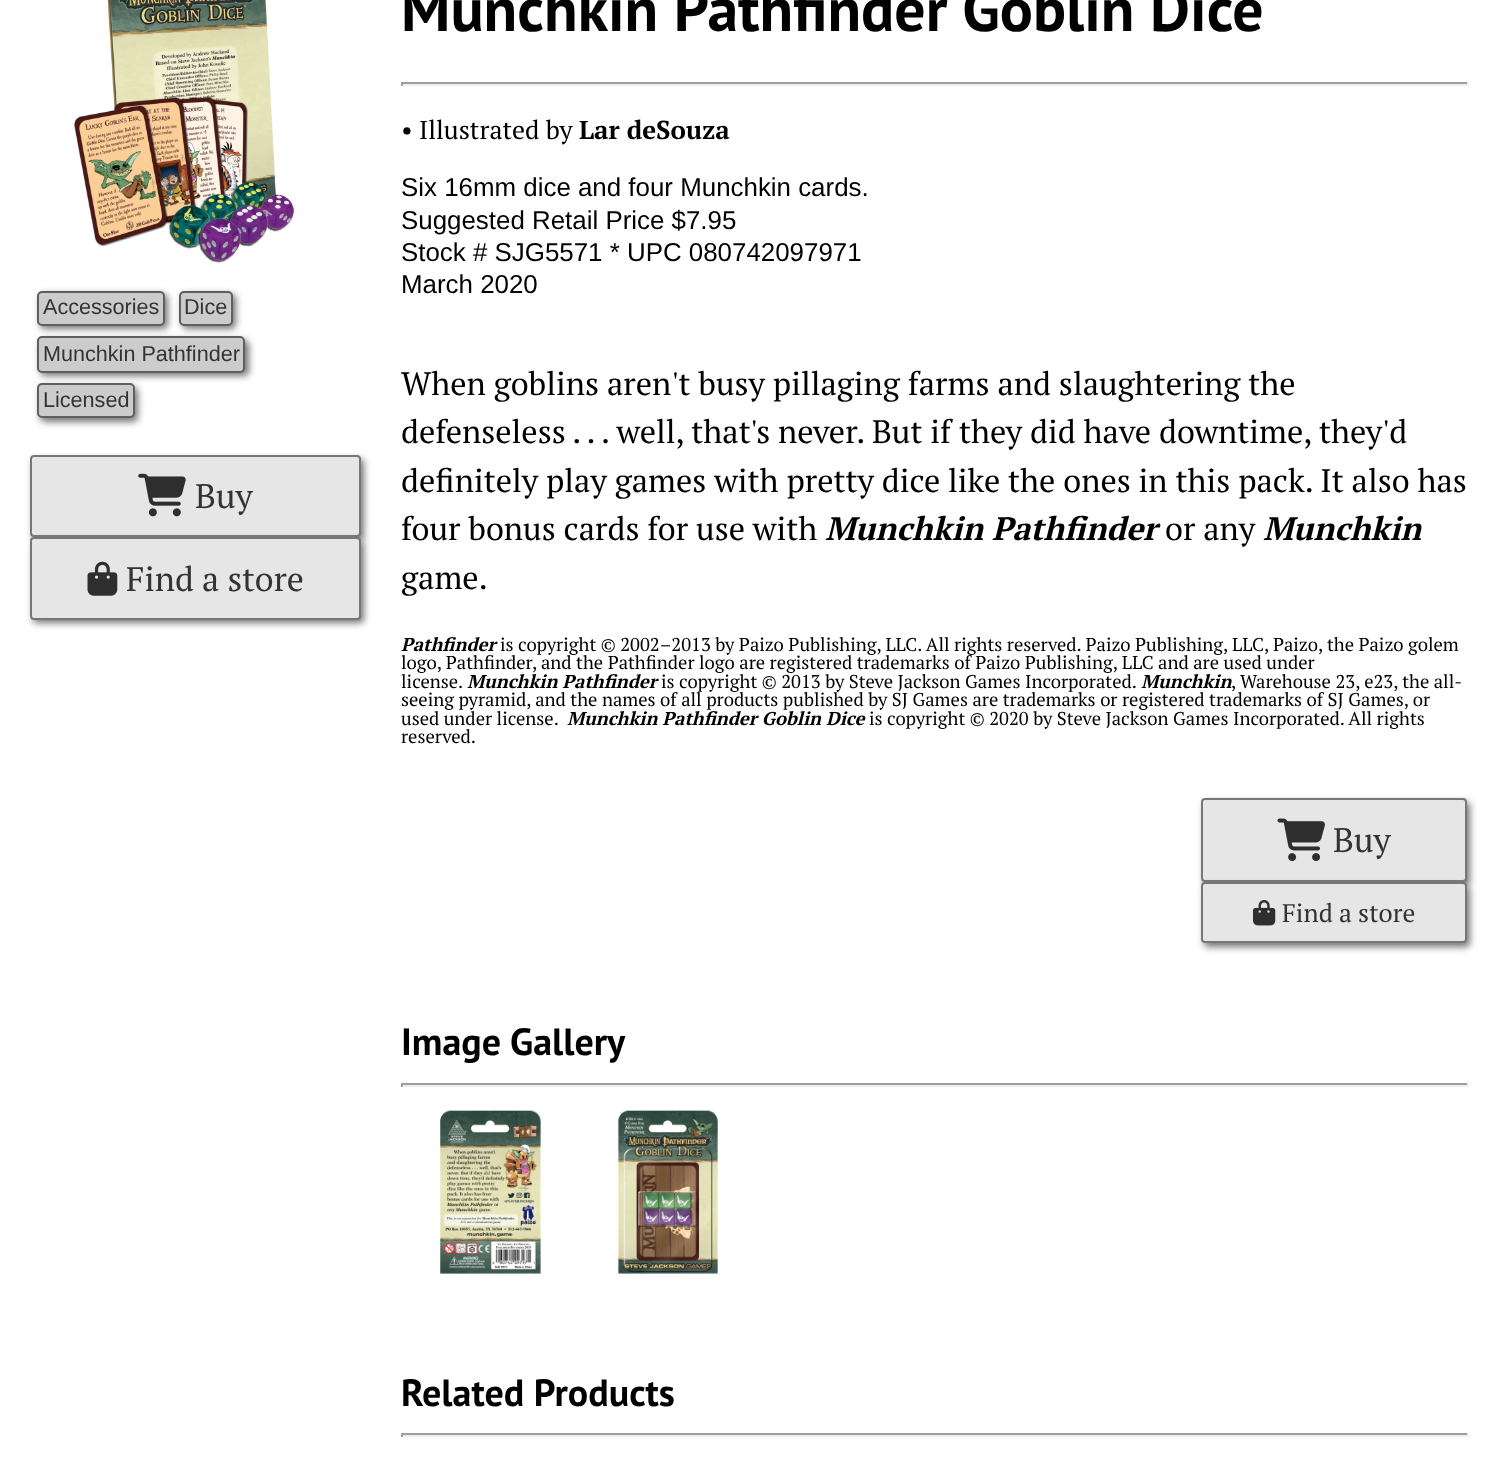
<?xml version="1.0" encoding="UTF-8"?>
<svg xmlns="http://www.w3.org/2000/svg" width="1506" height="1478">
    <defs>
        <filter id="blur1" x="-50%" y="-200%" width="200%" height="500%"><feGaussianBlur stdDeviation="3.5"/></filter>
    </defs>
    <rect width="100%" height="100%" fill="#FFFFFF"/>
    <image x="74" y="0" width="221" height="263" href="img_01.png"/>
    <rect x="40" y="294" width="128" height="35" rx="5" fill="#777777" filter="url(#blur1)"/>
    <rect x="38" y="292" width="126" height="33" rx="4" fill="#CCCCCC" stroke="#5F5F5F" stroke-width="2"/>
    <text x="43" y="314" font-family="Arimo" font-size="21.6" fill="#333333">Accessories</text>
    <rect x="182" y="294" width="54" height="35" rx="5" fill="#777777" filter="url(#blur1)"/>
    <rect x="180" y="292" width="52" height="33" rx="4" fill="#CCCCCC" stroke="#5F5F5F" stroke-width="2"/>
    <text x="184" y="314" font-family="Arimo" font-size="21.6" fill="#333333">Dice</text>
    <rect x="40" y="340" width="209" height="36" rx="5" fill="#777777" filter="url(#blur1)"/>
    <rect x="38" y="337" width="206" height="35" rx="4" fill="#CCCCCC" stroke="#5F5F5F" stroke-width="2"/>
    <text x="43" y="361" font-family="Arimo" font-size="21.6" fill="#333333">Munchkin Pathfinder</text>
    <rect x="40" y="387" width="98" height="35" rx="5" fill="#777777" filter="url(#blur1)"/>
    <rect x="38" y="384" width="96" height="33" rx="4" fill="#CCCCCC" stroke="#5F5F5F" stroke-width="2"/>
    <text x="43" y="407" font-family="Arimo" font-size="21.6" fill="#333333">Licensed</text>
    <rect x="33" y="459" width="331" height="82" rx="4" fill="#777777" filter="url(#blur1)"/>
    <rect x="31" y="456" width="329" height="80" rx="3" fill="#E6E6E6" stroke="#777777" stroke-width="2"/>
    <image x="138" y="473" width="48" height="44" href="img_02.png"/>
    <text x="195" y="508" font-family="PT Serif" font-size="34" fill="#333333">Buy</text>
    <rect x="33" y="541" width="331" height="82" rx="4" fill="#777777" filter="url(#blur1)"/>
    <rect x="31" y="538" width="329" height="81" rx="3" fill="#E6E6E6" stroke="#777777" stroke-width="2"/>
    <image x="87" y="561" width="31" height="35" href="img_03.png"/>
    <text x="126" y="591" font-family="PT Serif" font-size="34" fill="#333333">Find a store</text>
    <text x="401" y="31" font-family="PT Sans" font-size="61.75" font-weight="700" fill="#000000">Munchkin Pathfinder Goblin Dice</text>
    <rect x="401" y="82" width="1067" height="2" fill="#9F9F9F"/>
    <rect x="1467" y="82" width="2" height="4" fill="#EEEEEE"/>
    <rect x="401" y="84" width="1067" height="2" fill="#EEEEEE"/>
    <rect x="401" y="82" width="2" height="4" fill="#9F9F9F"/>
    <text x="401" y="139" font-family="PT Serif" font-size="25.9" fill="#000000">• Illustrated by</text>
    <text x="579" y="139" font-family="PT Serif" font-size="25.9" font-weight="700" fill="#000000">Lar deSouza</text>
    <text font-family="Arimo" font-size="25.9" fill="#000000">
        <tspan x="401" y="196">Six 16mm dice and four Munchkin cards.</tspan>
        <tspan x="401" y="229">Suggested Retail Price $7.95</tspan>
        <tspan x="401" y="261">Stock # SJG5571 * UPC 080742097971</tspan>
        <tspan x="401" y="293">March 2020</tspan>
    </text>
    <text font-family="PT Serif" font-size="32.4" fill="#000000">
        <tspan x="401" y="395">When goblins aren't busy pillaging farms and slaughtering the</tspan>
        <tspan x="401" y="443">defenseless . . . well, that's never. But if they did have downtime, they'd</tspan>
        <tspan x="401" y="492">definitely play games with pretty dice like the ones in this pack. It also has</tspan>
        <tspan x="401" y="540">four bonus cards for use with</tspan>
    </text>
    <text x="825" y="540" font-family="PT Serif" font-size="32.4" font-weight="700" font-style="italic" fill="#000000">Munchkin Pathfinder</text>
    <text x="1165" y="540" font-family="PT Serif" font-size="32.4" fill="#000000">or any</text>
    <text x="1263" y="540" font-family="PT Serif" font-size="32.4" font-weight="700" font-style="italic" fill="#000000">Munchkin</text>
    <text x="401" y="589" font-family="PT Serif" font-size="32.4" fill="#000000">game.</text>
    <text x="401" y="651" font-family="PT Serif" font-size="18.52" font-weight="700" font-style="italic" fill="#000000">Pathfinder</text>
    <text x="500" y="651" font-family="PT Serif" font-size="18.52" fill="#000000">is copyright © 2002–2013 by Paizo Publishing, LLC. All rights reserved. Paizo Publishing, LLC, Paizo, the Paizo golem</text>
    <text font-family="PT Serif" font-size="18.52" fill="#000000">
        <tspan x="401" y="669">logo, Pathfinder, and the Pathfinder logo are registered trademarks of Paizo Publishing, LLC and are used under</tspan>
        <tspan x="401" y="688">license.</tspan>
    </text>
    <text x="467" y="688" font-family="PT Serif" font-size="18.52" font-weight="700" font-style="italic" fill="#000000">Munchkin Pathfinder</text>
    <text x="661" y="688" font-family="PT Serif" font-size="18.52" fill="#000000">is copyright © 2013 by Steve Jackson Games Incorporated.</text>
    <text x="1141" y="688" font-family="PT Serif" font-size="18.52" font-weight="700" font-style="italic" fill="#000000">Munchkin</text>
    <text x="1231" y="688" font-family="PT Serif" font-size="18.52" fill="#000000">, Warehouse 23, e23, the all-</text>
    <text font-family="PT Serif" font-size="18.52" fill="#000000">
        <tspan x="401" y="706">seeing pyramid, and the names of all products published by SJ Games are trademarks or registered trademarks of SJ Games, or</tspan>
        <tspan x="401" y="725">used under license.</tspan>
    </text>
    <text x="567" y="725" font-family="PT Serif" font-size="18.52" font-weight="700" font-style="italic" fill="#000000">Munchkin Pathfinder Goblin Dice</text>
    <text x="869" y="725" font-family="PT Serif" font-size="18.52" fill="#000000">is copyright © 2020 by Steve Jackson Games Incorporated. All rights</text>
    <text x="401" y="743" font-family="PT Serif" font-size="18.52" fill="#000000">reserved.</text>
    <rect x="1204" y="802" width="266" height="84" rx="4" fill="#777777" filter="url(#blur1)"/>
    <rect x="1202" y="799" width="264" height="82" rx="3" fill="#E6E6E6" stroke="#777777" stroke-width="2"/>
    <image x="1277" y="818" width="48" height="44" href="img_04.png"/>
    <text x="1333" y="852" font-family="PT Serif" font-size="34" fill="#333333">Buy</text>
    <rect x="1204" y="886" width="266" height="61" rx="4" fill="#777777" filter="url(#blur1)"/>
    <rect x="1202" y="883" width="264" height="59" rx="3" fill="#E6E6E6" stroke="#777777" stroke-width="2"/>
    <image x="1253" y="900" width="23" height="26" href="img_05.png"/>
    <text x="1282" y="922" font-family="PT Serif" font-size="25.5" fill="#333333">Find a store</text>
    <text x="401" y="1055" font-family="PT Sans" font-size="38" font-weight="700" fill="#000000">Image Gallery</text>
    <rect x="401" y="1083" width="1067" height="2" fill="#9F9F9F"/>
    <rect x="1467" y="1083" width="2" height="4" fill="#EEEEEE"/>
    <rect x="401" y="1085" width="1067" height="2" fill="#EEEEEE"/>
    <rect x="401" y="1083" width="2" height="4" fill="#9F9F9F"/>
    <image x="439" y="1110" width="102" height="164" href="img_06.png"/>
    <image x="617" y="1110" width="101" height="164" href="img_07.png"/>
    <text x="401" y="1406" font-family="PT Sans" font-size="38" font-weight="700" fill="#000000">Related Products</text>
    <rect x="401" y="1433" width="1067" height="2" fill="#9F9F9F"/>
    <rect x="1467" y="1433" width="2" height="4" fill="#EEEEEE"/>
    <rect x="401" y="1435" width="1067" height="2" fill="#EEEEEE"/>
    <rect x="401" y="1433" width="2" height="4" fill="#9F9F9F"/>
</svg>
